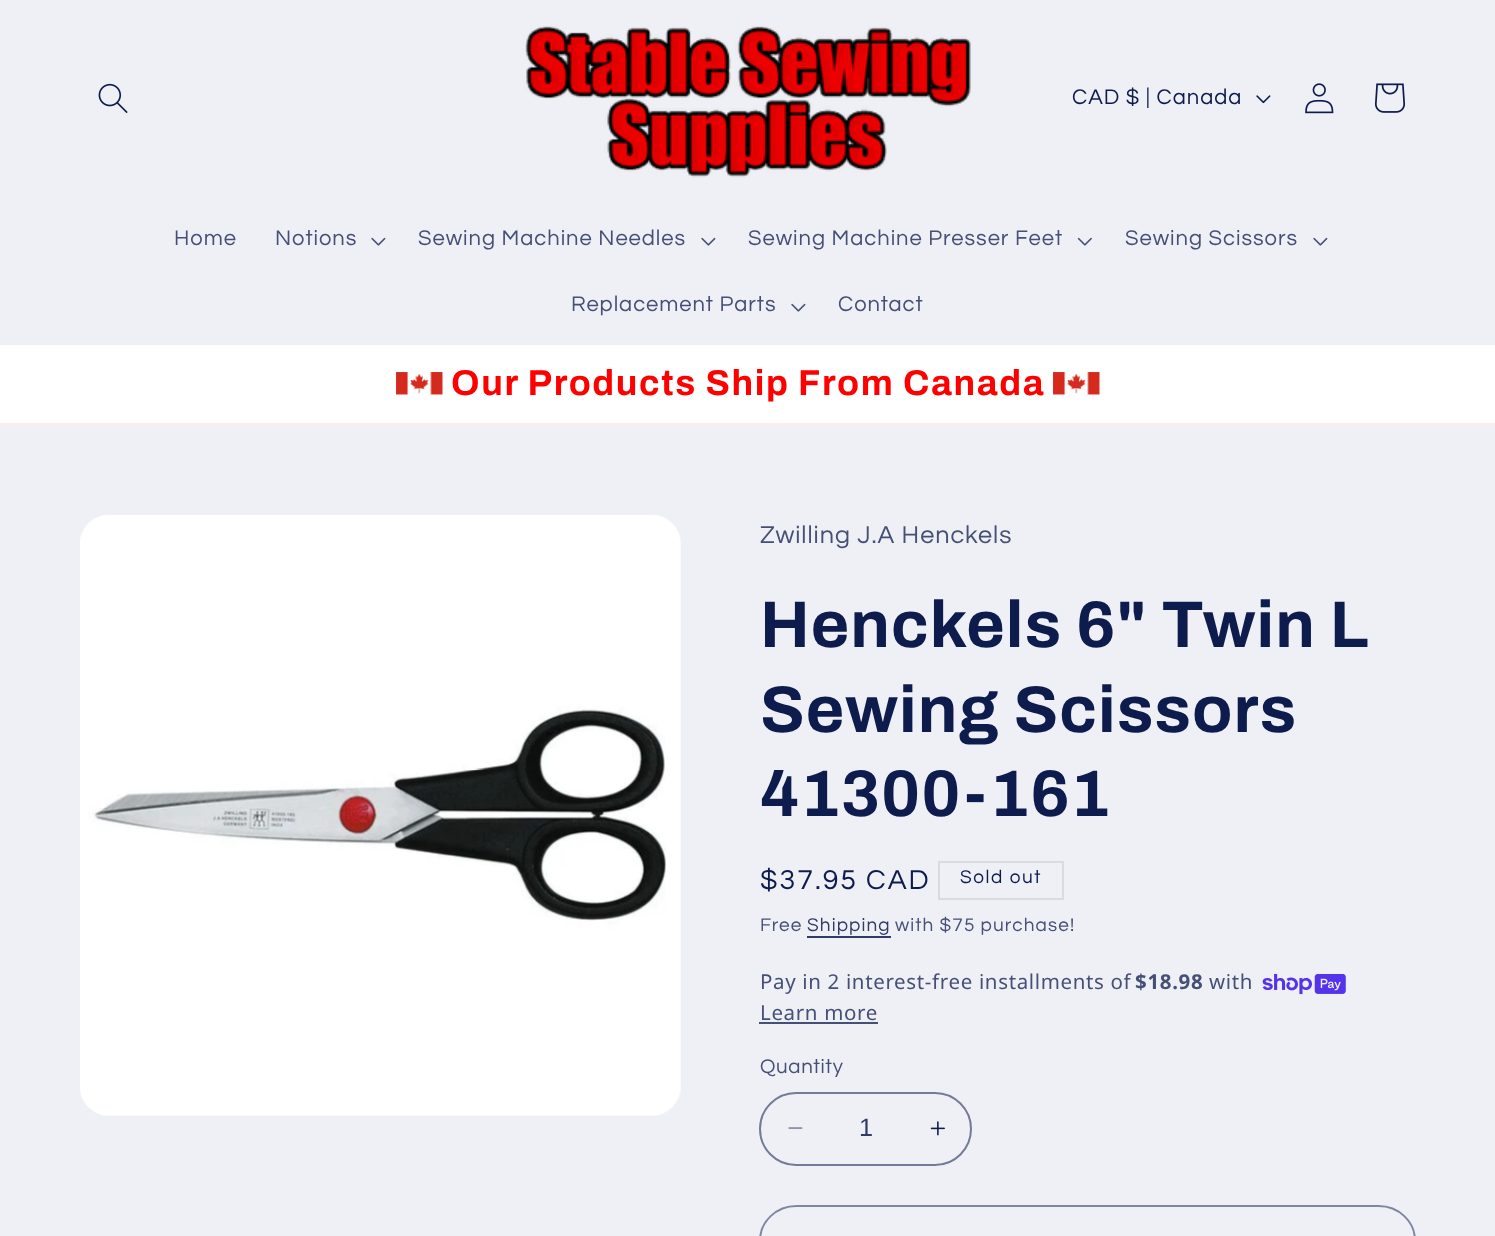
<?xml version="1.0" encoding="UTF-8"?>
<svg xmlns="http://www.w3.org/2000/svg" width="1495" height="1236">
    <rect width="100%" height="100%" fill="#EFF0F5"/>
    <image x="98" y="83" width="30" height="30" href="img_01.png"/>
    <image x="525" y="26" width="446" height="152" href="img_02.png"/>
    <text x="1072" y="104" font-family="Questrial" font-size="22" letter-spacing="0.95" fill="#0E1B4D">CAD $ | Canada</text>
    <image x="1256" y="95" width="15" height="9" href="img_03.png"/>
    <image x="1305" y="83" width="29" height="31" href="img_04.png"/>
    <image x="1375" y="83" width="31" height="30" href="img_05.png"/>
    <text x="174" y="245" font-family="Questrial" font-size="22" letter-spacing="0.95" fill="#465077">Home</text>
    <text x="275" y="245" font-family="Questrial" font-size="22" letter-spacing="0.95" fill="#465077">Notions</text>
    <image x="371" y="237" width="15" height="9" href="img_06.png"/>
    <text x="418" y="245" font-family="Questrial" font-size="22" letter-spacing="0.95" fill="#465077">Sewing Machine Needles</text>
    <image x="701" y="237" width="15" height="9" href="img_06.png"/>
    <text x="748" y="245" font-family="Questrial" font-size="22" letter-spacing="0.95" fill="#465077">Sewing Machine Presser Feet</text>
    <image x="1077" y="237" width="15" height="9" href="img_07.png"/>
    <text x="1125" y="245" font-family="Questrial" font-size="22" letter-spacing="0.95" fill="#465077">Sewing Scissors</text>
    <image x="1313" y="237" width="15" height="9" href="img_06.png"/>
    <text x="571" y="311" font-family="Questrial" font-size="22" letter-spacing="0.95" fill="#465077">Replacement Parts</text>
    <image x="791" y="303" width="15" height="9" href="img_06.png"/>
    <text x="838" y="311" font-family="Questrial" font-size="22" letter-spacing="0.95" fill="#465077">Contact</text>
    <rect x="0" y="345" width="1495" height="78" fill="#FFFFFF"/>
    <rect x="0" y="423" width="1495" height="2" fill="#FFEBEB"/>
    <image x="396" y="372" width="47" height="23" href="img_08.png"/>
    <text x="451" y="395" font-family="Archivo" font-size="36" font-weight="700" letter-spacing="1.6" fill="#FF0000">Our Products Ship From Canada</text>
    <image x="1053" y="372" width="47" height="23" href="img_08.png"/>
    <image x="80" y="515" width="601" height="601" href="img_09.png"/>
    <text x="760" y="543" font-family="Questrial" font-size="25.25" letter-spacing="0.95" fill="#465077">Zwilling J.A Henckels</text>
    <text font-family="Archivo" font-size="66" font-weight="700" letter-spacing="1" fill="#0E1B4D">
        <tspan x="760" y="647">Henckels 6" Twin L</tspan>
        <tspan x="760" y="732">Sewing Scissors</tspan>
        <tspan x="760" y="816">41300-161</tspan>
    </text>
    <text x="760" y="889" font-family="Questrial" font-size="28.5" letter-spacing="2" fill="#0E1B4D">$37.95 CAD</text>
    <rect x="939" y="862" width="124" height="37" fill="none" stroke="#D8DBE4" stroke-width="2"/>
    <text x="960" y="883" font-family="Questrial" font-size="19" letter-spacing="1.6" fill="#0E1B4D">Sold out</text>
    <text x="760" y="931" font-family="Questrial" font-size="19" letter-spacing="1.1" fill="#465077">Free</text>
    <text x="807" y="931" font-family="Questrial" font-size="19" letter-spacing="1.1" fill="#303B66">Shipping</text>
    <rect x="807" y="936" width="84" height="2" fill="#303B66"/>
    <text x="895" y="931" font-family="Questrial" font-size="19" letter-spacing="1.1" fill="#465077">with $75 purchase!</text>
    <text x="760" y="989" font-family="Noto Sans" font-size="20.5" letter-spacing="0.65" fill="#465077">Pay in 2 interest-free installments of</text>
    <text x="1135" y="989" font-family="Noto Sans" font-size="20.5" font-weight="700" letter-spacing="0.65" fill="#465077">$18.98</text>
    <text x="1209" y="989" font-family="Noto Sans" font-size="20.5" letter-spacing="0.65" fill="#465077">with</text>
    <image x="1262" y="974" width="84" height="21" href="img_10.png"/>
    <text x="760" y="1020" font-family="Noto Sans" font-size="20.5" letter-spacing="0.65" fill="#465077">Learn more</text>
    <rect x="759" y="1022" width="119" height="2" fill="#465077"/>
    <text x="760" y="1073" font-family="Questrial" font-size="20.5" letter-spacing="0.65" fill="#465077">Quantity</text>
    <image x="788" y="1127" width="15" height="2" href="img_11.png"/>
    <image x="930" y="1121" width="15" height="15" href="img_12.png"/>
    <rect x="760" y="1093" width="211" height="72" rx="36" fill="none" stroke="#737B99" stroke-width="2"/>
    <text x="859" y="1136" font-family="Liberation Sans" font-size="25.25" fill="#303B66">1</text>
    <rect x="760" y="1206" width="655" height="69" rx="36.5" fill="none" stroke="#7F86A1" stroke-width="2"/>
</svg>
